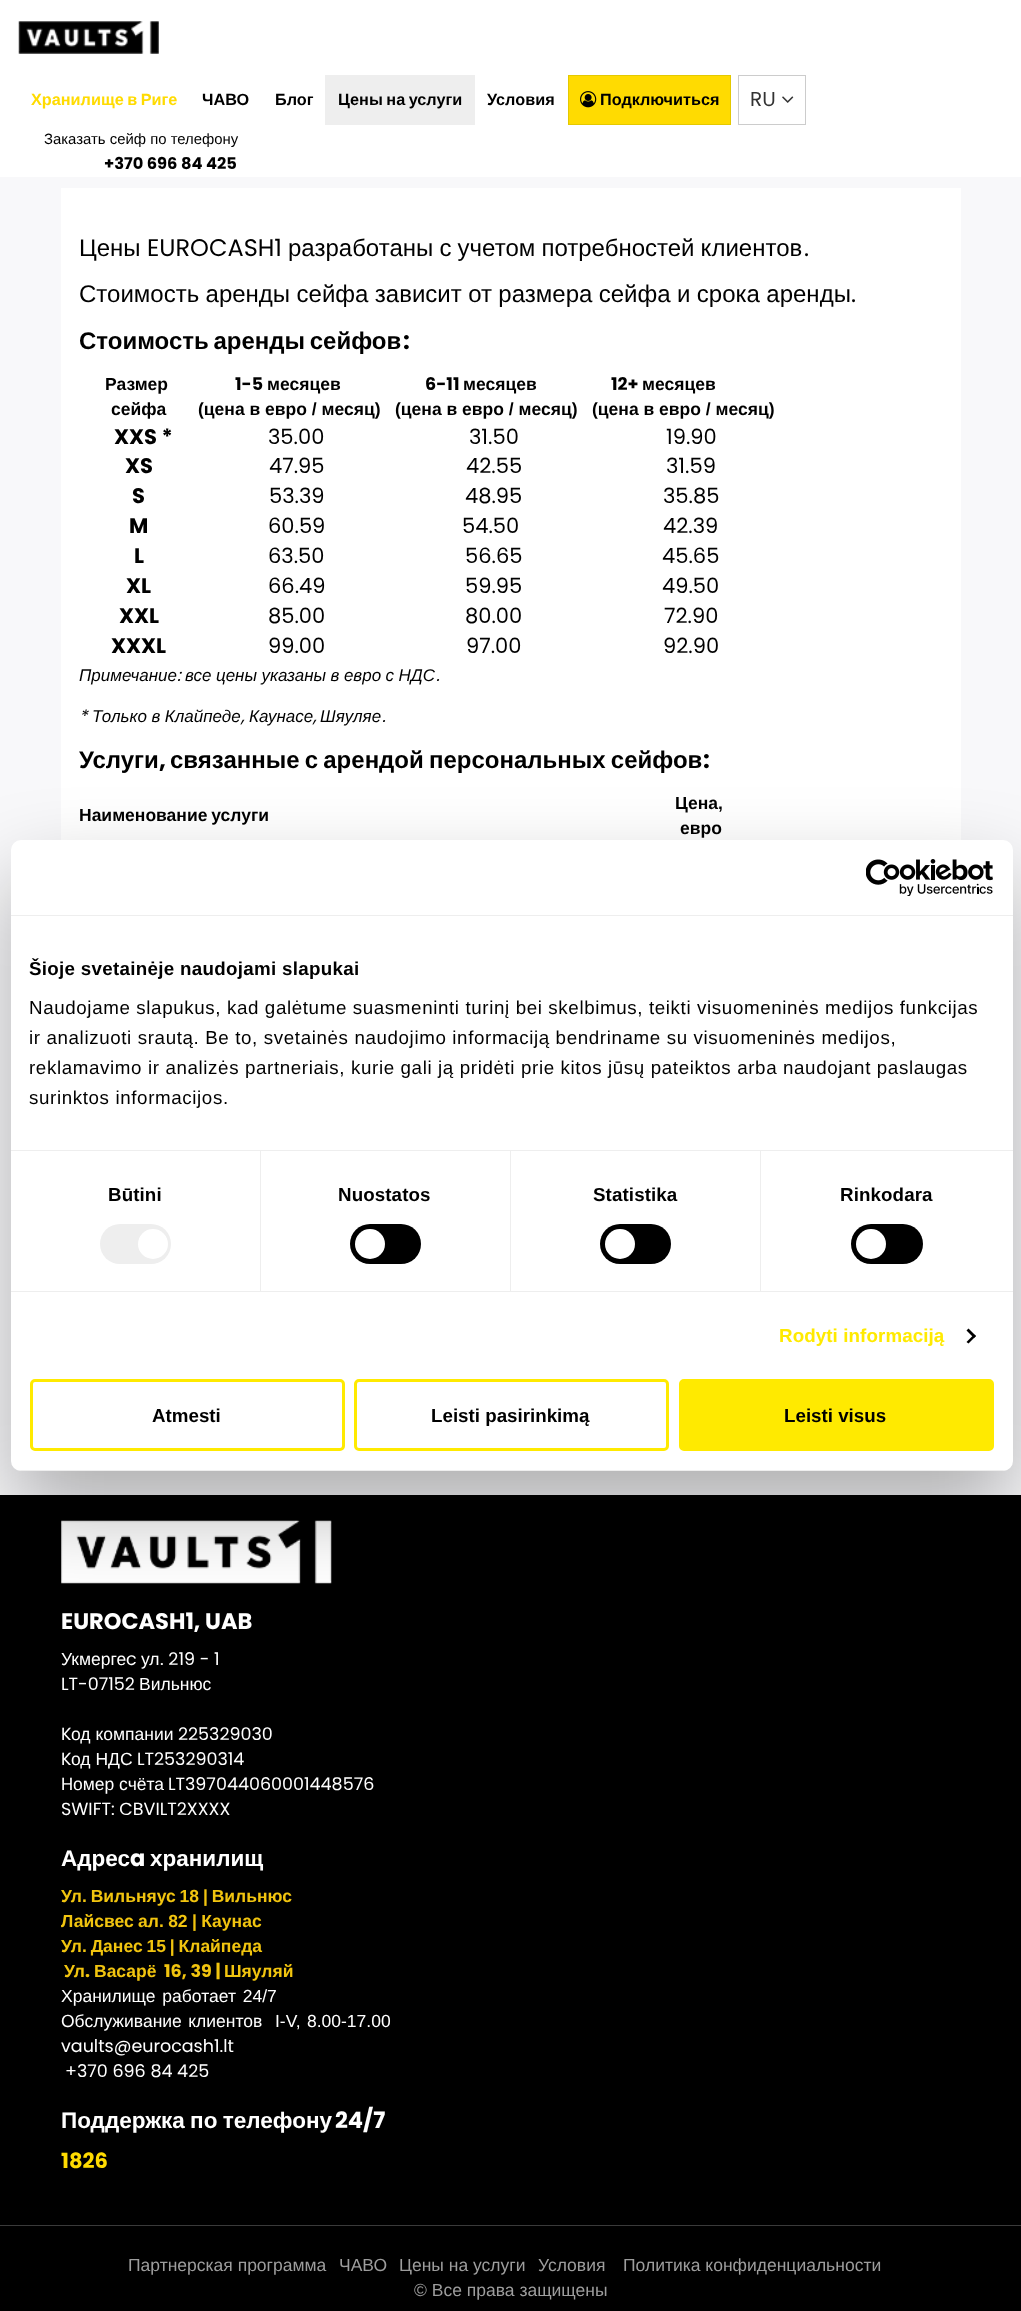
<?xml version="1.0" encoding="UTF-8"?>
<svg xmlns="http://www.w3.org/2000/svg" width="1021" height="2311">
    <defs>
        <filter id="blur1" x="-50%" y="-200%" width="200%" height="500%"><feGaussianBlur stdDeviation="42.5"/></filter>
        <clipPath id="clip1"><rect x="11" y="840" width="1002" height="631" rx="10"/></clipPath>
    </defs>
    <rect width="100%" height="100%" fill="#F8F8FA"/>
    <rect x="0" y="0" width="1021" height="177" fill="#FFFFFF"/>
    <image x="18" y="21" width="141" height="33" href="img_01.png"/>
    <text x="31" y="105" word-spacing="-1" font-family="Liberation Sans" font-size="16.25" font-weight="700" fill="#FFDB01">Хранилище в Риге</text>
    <text x="202" y="105" font-family="Liberation Sans" font-size="16.25" font-weight="700" fill="#000000">ЧАВО</text>
    <text x="275" y="105" font-family="Liberation Sans" font-size="16.25" font-weight="700" fill="#000000">Блог</text>
    <rect x="325" y="75" width="150" height="50" fill="#EEEEEE"/>
    <text x="338" y="105" word-spacing="-1" font-family="Liberation Sans" font-size="16.25" font-weight="700" fill="#000000">Цены на услуги</text>
    <text x="487" y="105" font-family="Liberation Sans" font-size="16.25" font-weight="700" fill="#000000">Условия</text>
    <rect x="568.5" y="75.5" width="162" height="49" fill="#FFDB01" stroke="#E4C900"/>
    <image x="580" y="91" width="17" height="17" href="img_02.png"/>
    <text x="600" y="105" font-family="Liberation Sans" font-size="16.25" font-weight="700" fill="#000000">Подключиться</text>
    <rect x="738.5" y="75.5" width="67" height="49" fill="none" stroke="#CCCCCC"/>
    <text x="750" y="106" font-family="Poppins" font-size="20" fill="#333333">RU</text>
    <image x="782" y="96" width="12" height="7" href="img_03.png"/>
    <text x="44" y="144" font-family="Liberation Sans" font-size="14.9" fill="#000000">Заказать сейф по телефону</text>
    <text x="104" y="169" font-family="Poppins" font-size="16.25" font-weight="700" fill="#000000">+370 696 84 425</text>
    <rect x="61" y="188" width="900" height="652" fill="#FFFFFF"/>
    <text x="79" y="256" font-family="Liberation Sans" font-size="24" fill="#000000">Цены</text>
    <text x="147" y="256" font-family="Poppins" font-size="24" fill="#000000">EUROCASH1</text>
    <text x="288" y="256" word-spacing="-0.5" font-family="Liberation Sans" font-size="24" fill="#000000">разработаны с учетом потребностей клиентов</text>
    <text x="804" y="256" font-family="Poppins" font-size="24" fill="#000000">.</text>
    <text x="79" y="302" word-spacing="-0.25" font-family="Liberation Sans" font-size="24" fill="#000000">Стоимость аренды сейфа зависит от размера сейфа и срока аренды</text>
    <text x="851" y="302" font-family="Poppins" font-size="24" fill="#000000">.</text>
    <text x="79" y="349" word-spacing="-2" font-family="Liberation Sans" font-size="24" font-weight="700" fill="#000000">Стоимость аренды сейфов</text>
    <text x="403" y="349" font-family="Poppins" font-size="24" font-weight="700" fill="#000000">:</text>
    <text x="105" y="390" font-family="Liberation Sans" font-size="17.5" font-weight="700" fill="#000000">Размер</text>
    <text x="235" y="390" font-family="Poppins" font-size="17.5" font-weight="700" fill="#000000">1-5</text>
    <text x="267" y="390" font-family="Liberation Sans" font-size="17.5" font-weight="700" fill="#000000">месяцев</text>
    <text x="425" y="390" font-family="Poppins" font-size="17.5" font-weight="700" fill="#000000">6-11</text>
    <text x="463" y="390" font-family="Liberation Sans" font-size="17.5" font-weight="700" fill="#000000">месяцев</text>
    <text x="611" y="390" font-family="Poppins" font-size="17.5" font-weight="700" fill="#000000">12+</text>
    <text x="642" y="390" font-family="Liberation Sans" font-size="17.5" font-weight="700" fill="#000000">месяцев</text>
    <text x="111" y="415" font-family="Liberation Sans" font-size="17.5" font-weight="700" fill="#000000">сейфа</text>
    <text x="198" y="415" font-family="Liberation Sans" font-size="17.5" font-weight="700" fill="#000000">(цена в евро / месяц)</text>
    <text x="395" y="415" font-family="Liberation Sans" font-size="17.5" font-weight="700" fill="#000000">(цена в евро / месяц)</text>
    <text x="592" y="415" font-family="Liberation Sans" font-size="17.5" font-weight="700" fill="#000000">(цена в евро / месяц)</text>
    <text x="114" y="444" font-family="Poppins" font-size="21" font-weight="700" fill="#000000">XXS *</text>
    <text x="268" y="444" font-family="Poppins" font-size="21" fill="#000000">35.00</text>
    <text x="469" y="444" font-family="Poppins" font-size="21" fill="#000000">31.50</text>
    <text x="666" y="444" font-family="Poppins" font-size="21" fill="#000000">19.90</text>
    <text x="125" y="473" font-family="Poppins" font-size="21" font-weight="700" fill="#000000">XS</text>
    <text x="269" y="473" font-family="Poppins" font-size="21" fill="#000000">47.95</text>
    <text x="466" y="473" font-family="Poppins" font-size="21" fill="#000000">42.55</text>
    <text x="666" y="473" font-family="Poppins" font-size="21" fill="#000000">31.59</text>
    <text x="132" y="503" font-family="Poppins" font-size="21" font-weight="700" fill="#000000">S</text>
    <text x="269" y="503" font-family="Poppins" font-size="21" fill="#000000">53.39</text>
    <text x="465" y="503" font-family="Poppins" font-size="21" fill="#000000">48.95</text>
    <text x="663" y="503" font-family="Poppins" font-size="21" fill="#000000">35.85</text>
    <text x="129" y="533" font-family="Poppins" font-size="21" font-weight="700" fill="#000000">M</text>
    <text x="268" y="533" font-family="Poppins" font-size="21" fill="#000000">60.59</text>
    <text x="462" y="533" font-family="Poppins" font-size="21" fill="#000000">54.50</text>
    <text x="663" y="533" font-family="Poppins" font-size="21" fill="#000000">42.39</text>
    <text x="134" y="563" font-family="Poppins" font-size="21" font-weight="700" fill="#000000">L</text>
    <text x="268" y="563" font-family="Poppins" font-size="21" fill="#000000">63.50</text>
    <text x="465" y="563" font-family="Poppins" font-size="21" fill="#000000">56.65</text>
    <text x="662" y="563" font-family="Poppins" font-size="21" fill="#000000">45.65</text>
    <text x="126" y="593" font-family="Poppins" font-size="21" font-weight="700" fill="#000000">XL</text>
    <text x="268" y="593" font-family="Poppins" font-size="21" fill="#000000">66.49</text>
    <text x="465" y="593" font-family="Poppins" font-size="21" fill="#000000">59.95</text>
    <text x="662" y="593" font-family="Poppins" font-size="21" fill="#000000">49.50</text>
    <text x="119" y="623" font-family="Poppins" font-size="21" font-weight="700" fill="#000000">XXL</text>
    <text x="268" y="623" font-family="Poppins" font-size="21" fill="#000000">85.00</text>
    <text x="465" y="623" font-family="Poppins" font-size="21" fill="#000000">80.00</text>
    <text x="664" y="623" font-family="Poppins" font-size="21" fill="#000000">72.90</text>
    <text x="111" y="653" font-family="Poppins" font-size="21" font-weight="700" fill="#000000">XXXL</text>
    <text x="268" y="653" font-family="Poppins" font-size="21" fill="#000000">99.00</text>
    <text x="466" y="653" font-family="Poppins" font-size="21" fill="#000000">97.00</text>
    <text x="663" y="653" font-family="Poppins" font-size="21" fill="#000000">92.90</text>
    <text x="79" y="681" font-family="Liberation Sans" font-size="17" font-style="italic" fill="#000000">Примечание</text>
    <text x="177" y="681" font-family="Poppins" font-size="17" font-style="italic" fill="#000000">:</text>
    <text x="185" y="681" word-spacing="-0.25" font-family="Liberation Sans" font-size="17" font-style="italic" fill="#000000">все цены указаны в евро с НДС</text>
    <text x="436" y="681" font-family="Poppins" font-size="17" font-style="italic" fill="#000000">.</text>
    <text x="79" y="722" font-family="Poppins" font-size="17" font-style="italic" fill="#000000">*</text>
    <text x="92" y="722" word-spacing="-0.25" font-family="Liberation Sans" font-size="17" font-style="italic" fill="#000000">Только в Клайпеде</text>
    <text x="241" y="722" font-family="Poppins" font-size="17" font-style="italic" fill="#000000">,</text>
    <text x="249" y="722" font-family="Liberation Sans" font-size="17" font-style="italic" fill="#000000">Каунасе</text>
    <text x="313" y="722" font-family="Poppins" font-size="17" font-style="italic" fill="#000000">,</text>
    <text x="320" y="722" font-family="Liberation Sans" font-size="17" font-style="italic" fill="#000000">Шяуляе</text>
    <text x="382" y="722" font-family="Poppins" font-size="17" font-style="italic" fill="#000000">.</text>
    <text x="79" y="768" font-family="Liberation Sans" font-size="24" font-weight="700" fill="#000000">Услуги</text>
    <text x="159" y="768" font-family="Poppins" font-size="24" font-weight="700" fill="#000000">,</text>
    <text x="170" y="768" word-spacing="-1.5" font-family="Liberation Sans" font-size="24" font-weight="700" fill="#000000">связанные с арендой персональных сейфов</text>
    <text x="703" y="768" font-family="Poppins" font-size="24" font-weight="700" fill="#000000">:</text>
    <text x="675" y="809" font-family="Liberation Sans" font-size="17.5" font-weight="700" fill="#000000">Цена,</text>
    <text x="79" y="821" word-spacing="-1" font-family="Liberation Sans" font-size="17.5" font-weight="700" fill="#000000">Наименование услуги</text>
    <text x="680" y="834" font-family="Liberation Sans" font-size="17.5" font-weight="700" fill="#000000">евро</text>
    <rect x="0" y="1495" width="1021" height="816" fill="#000000"/>
    <image x="61" y="1520" width="271" height="64" href="img_05.png"/>
    <rect x="11" y="880" width="1002" height="631" rx="10" fill="#000000" fill-opacity="0.3" filter="url(#blur1)"/>
    <rect x="11" y="840" width="1002" height="631" rx="10" fill="#FFFFFF"/>
    <rect x="11" y="915" width="1002" height="1" fill="#EEEEEE"/>
    <image x="866" y="859" width="127" height="37" href="img_04.png"/>
    <rect x="11" y="1150" width="1002" height="1" fill="#EEEEEE"/>
    <text x="29" y="975" font-family="Liberation Sans" font-size="18.75" font-weight="700" letter-spacing="0.3" fill="#000000">Šioje svetainėje naudojami slapukai</text>
    <text font-family="Liberation Sans" font-size="18.75" letter-spacing="0.62" fill="#000000">
        <tspan x="29" y="1014">Naudojame slapukus, kad galėtume suasmeninti turinį bei skelbimus, teikti visuomeninės medijos funkcijas</tspan>
        <tspan x="29" y="1044">ir analizuoti srautą. Be to, svetainės naudojimo informaciją bendriname su visuomeninės medijos,</tspan>
        <tspan x="29" y="1074">reklamavimo ir analizės partneriais, kurie gali ją pridėti prie kitos jūsų pateiktos arba naudojant paslaugas</tspan>
        <tspan x="29" y="1104">surinktos informacijos.</tspan>
    </text>
    <rect x="11" y="1291" width="1002" height="1" fill="#EEEEEE"/>
    <rect x="260" y="1151" width="1" height="140" fill="#EEEEEE"/>
    <text x="108" y="1201" font-family="Liberation Sans" font-size="18.75" font-weight="700" letter-spacing="0.1" fill="#000000">Būtini</text>
    <rect x="100" y="1224" width="71" height="40" rx="20" fill="#EEEEEE"/>
    <circle cx="153" cy="1244" r="15" fill="#FFFFFF"/>
    <rect x="510" y="1151" width="1" height="140" fill="#EEEEEE"/>
    <text x="338" y="1201" font-family="Liberation Sans" font-size="18.75" font-weight="700" letter-spacing="0.1" fill="#000000">Nuostatos</text>
    <rect x="350" y="1224" width="71" height="40" rx="20" fill="#000000"/>
    <circle cx="370" cy="1244" r="15" fill="#FFFFFF"/>
    <rect x="760" y="1151" width="1" height="140" fill="#EEEEEE"/>
    <text x="593" y="1201" font-family="Liberation Sans" font-size="18.75" font-weight="700" letter-spacing="0.1" fill="#000000">Statistika</text>
    <rect x="600" y="1224" width="71" height="40" rx="20" fill="#000000"/>
    <circle cx="620" cy="1244" r="15" fill="#FFFFFF"/>
    <text x="840" y="1201" font-family="Liberation Sans" font-size="18.75" font-weight="700" letter-spacing="0.1" fill="#000000">Rinkodara</text>
    <rect x="851" y="1224" width="72" height="40" rx="20" fill="#000000"/>
    <circle cx="871" cy="1244" r="15" fill="#FFFFFF"/>
    <text x="779" y="1342" font-family="Liberation Sans" font-size="18.75" font-weight="700" letter-spacing="0.1" fill="#FFEA00">Rodyti informaciją</text>
    <path d="M 968.5 1328.5 L 976 1336 L 974 1338 L 966.5 1330.5 Z" fill="#000000"/>
    <path d="M 974 1334.5 L 976 1336 L 968.5 1343.5 L 966.5 1342 Z" fill="#000000"/>
    <g clip-path="url(#clip1)">
        <rect x="11" y="1470" width="1002" height="1" fill="#EEEEEE"/>
    </g>
    <rect x="31.5" y="1380.5" width="312" height="69" rx="3.5" fill="none" stroke="#FFEA00" stroke-width="3"/>
    <text x="152" y="1422" font-family="Liberation Sans" font-size="18.75" font-weight="700" fill="#000000">Atmesti</text>
    <rect x="355.5" y="1380.5" width="312" height="69" rx="3.5" fill="none" stroke="#FFEA00" stroke-width="3"/>
    <text x="431" y="1422" font-family="Liberation Sans" font-size="18.75" font-weight="700" fill="#000000">Leisti pasirinkimą</text>
    <rect x="680.5" y="1380.5" width="312" height="69" rx="3.5" fill="#FFEA00" stroke="#FFEA00" stroke-width="3"/>
    <text x="784" y="1422" font-family="Liberation Sans" font-size="18.75" font-weight="700" fill="#000000">Leisti visus</text>
    <text x="61" y="1629" font-family="Poppins" font-size="22.5" font-weight="700" fill="#FFFFFF">EUROCASH1, UAB</text>
    <text x="61" y="1665" font-family="Liberation Sans" font-size="17.5" fill="#FFFFFF">Укмерге</text>
    <text x="126" y="1665" font-family="Poppins" font-size="17.5" fill="#FFFFFF">c</text>
    <text x="141" y="1665" font-family="Liberation Sans" font-size="17.5" fill="#FFFFFF">ул</text>
    <text x="160" y="1665" font-family="Poppins" font-size="17.5" fill="#FFFFFF">. 219 - 1</text>
    <text x="61" y="1690" font-family="Poppins" font-size="17.5" fill="#FFFFFF">LT-07152</text>
    <text x="139" y="1690" font-family="Liberation Sans" font-size="17.5" fill="#FFFFFF">Вильнюс</text>
    <text x="61" y="1740" font-family="Poppins" font-size="17.5" fill="#FFFFFF">K</text>
    <text x="71" y="1740" font-family="Liberation Sans" font-size="17.5" fill="#FFFFFF">од компании</text>
    <text x="178" y="1740" font-family="Poppins" font-size="17.5" fill="#FFFFFF">225329030</text>
    <text x="61" y="1765" font-family="Poppins" font-size="17.5" fill="#FFFFFF">K</text>
    <text x="71" y="1765" font-family="Liberation Sans" font-size="17.5" fill="#FFFFFF">од НДС</text>
    <text x="137" y="1765" font-family="Poppins" font-size="17.5" fill="#FFFFFF">LT253290314</text>
    <text x="61" y="1790" font-family="Poppins" font-size="17.5" fill="#FFFFFF">H</text>
    <text x="73" y="1790" font-family="Liberation Sans" font-size="17.5" fill="#FFFFFF">омер счёта</text>
    <text x="168" y="1790" font-family="Poppins" font-size="17.5" fill="#FFFFFF">LT397044060001448576</text>
    <text x="61" y="1815" font-family="Poppins" font-size="17.5" fill="#FFFFFF">SWIFT: CBVILT2XXXX</text>
    <text x="61" y="1866" font-family="Liberation Sans" font-size="22.5" font-weight="700" fill="#FFFFFF">Адрес</text>
    <text x="130" y="1866" font-family="Poppins" font-size="22.5" font-weight="700" fill="#FFFFFF">a</text>
    <text x="150" y="1866" font-family="Liberation Sans" font-size="22.5" font-weight="700" fill="#FFFFFF">хранилищ</text>
    <text font-family="Liberation Sans" font-size="17.5" font-weight="700" fill="#F1C40F">
        <tspan x="61" y="1902" word-spacing="-1">Ул. Вильняус 18 | Вильнюс</tspan>
        <tspan x="61" y="1927" word-spacing="-0.5">Лайсвес ал. 82 | Каунас</tspan>
        <tspan x="61" y="1952" word-spacing="-1">Ул. Данес 15 | Клайпеда</tspan>
    </text>
    <text x="64" y="1977" font-family="Liberation Sans" font-size="17.5" font-weight="700" fill="#F1C40F">Ул</text>
    <text x="85" y="1977" font-family="Poppins" font-size="17.5" font-weight="700" fill="#F1C40F">.</text>
    <text x="94" y="1977" font-family="Liberation Sans" font-size="17.5" font-weight="700" fill="#F1C40F">Васарё</text>
    <text x="164" y="1977" font-family="Poppins" font-size="17.5" font-weight="700" fill="#F1C40F">16, 39 |</text>
    <text x="224" y="1977" font-family="Liberation Sans" font-size="17.5" font-weight="700" fill="#F1C40F">Шяуляй</text>
    <text font-family="Liberation Sans" font-size="17.5" fill="#FFFFFF" xml:space="preserve"><tspan x="61" y="2002" word-spacing="2">Хранилище работает 24/7</tspan><tspan x="61" y="2027" word-spacing="1.5">Oбслуживание клиентов  I-V, 8.00-17.00</tspan></text>
    <text x="61" y="2052" font-family="Poppins" font-size="17.5" fill="#FFFFFF">vaults@eurocash1.lt</text>
    <text x="65" y="2077" font-family="Poppins" font-size="17.5" fill="#FFFFFF">+370 696 84 425</text>
    <text x="61" y="2128" word-spacing="-1" font-family="Liberation Sans" font-size="22.5" font-weight="700" fill="#FFFFFF">Поддержка по телефону</text>
    <text x="335" y="2128" font-family="Poppins" font-size="22.5" font-weight="700" fill="#FFFFFF">24/7</text>
    <text x="61" y="2168" font-family="Poppins" font-size="21" font-weight="700" fill="#FFDB01">1826</text>
    <rect x="0" y="2225" width="1021" height="1" fill="#3A3A3A"/>
    <text x="128" y="2271" font-family="Liberation Sans" font-size="17.5" fill="#9D9D9D">Партнерская программа</text>
    <text x="339" y="2271" font-family="Liberation Sans" font-size="17.5" fill="#9D9D9D">ЧАВО</text>
    <text x="399" y="2271" font-family="Liberation Sans" font-size="17.5" fill="#9D9D9D">Цены на услуги</text>
    <text x="538" y="2271" font-family="Liberation Sans" font-size="17.5" fill="#9D9D9D">Условия</text>
    <text x="623" y="2271" font-family="Liberation Sans" font-size="17.5" fill="#9D9D9D">Политика конфиденциальности</text>
    <text x="414" y="2296" font-family="Liberation Sans" font-size="17.5" fill="#9D9D9D">© Все права защищены</text>
</svg>
